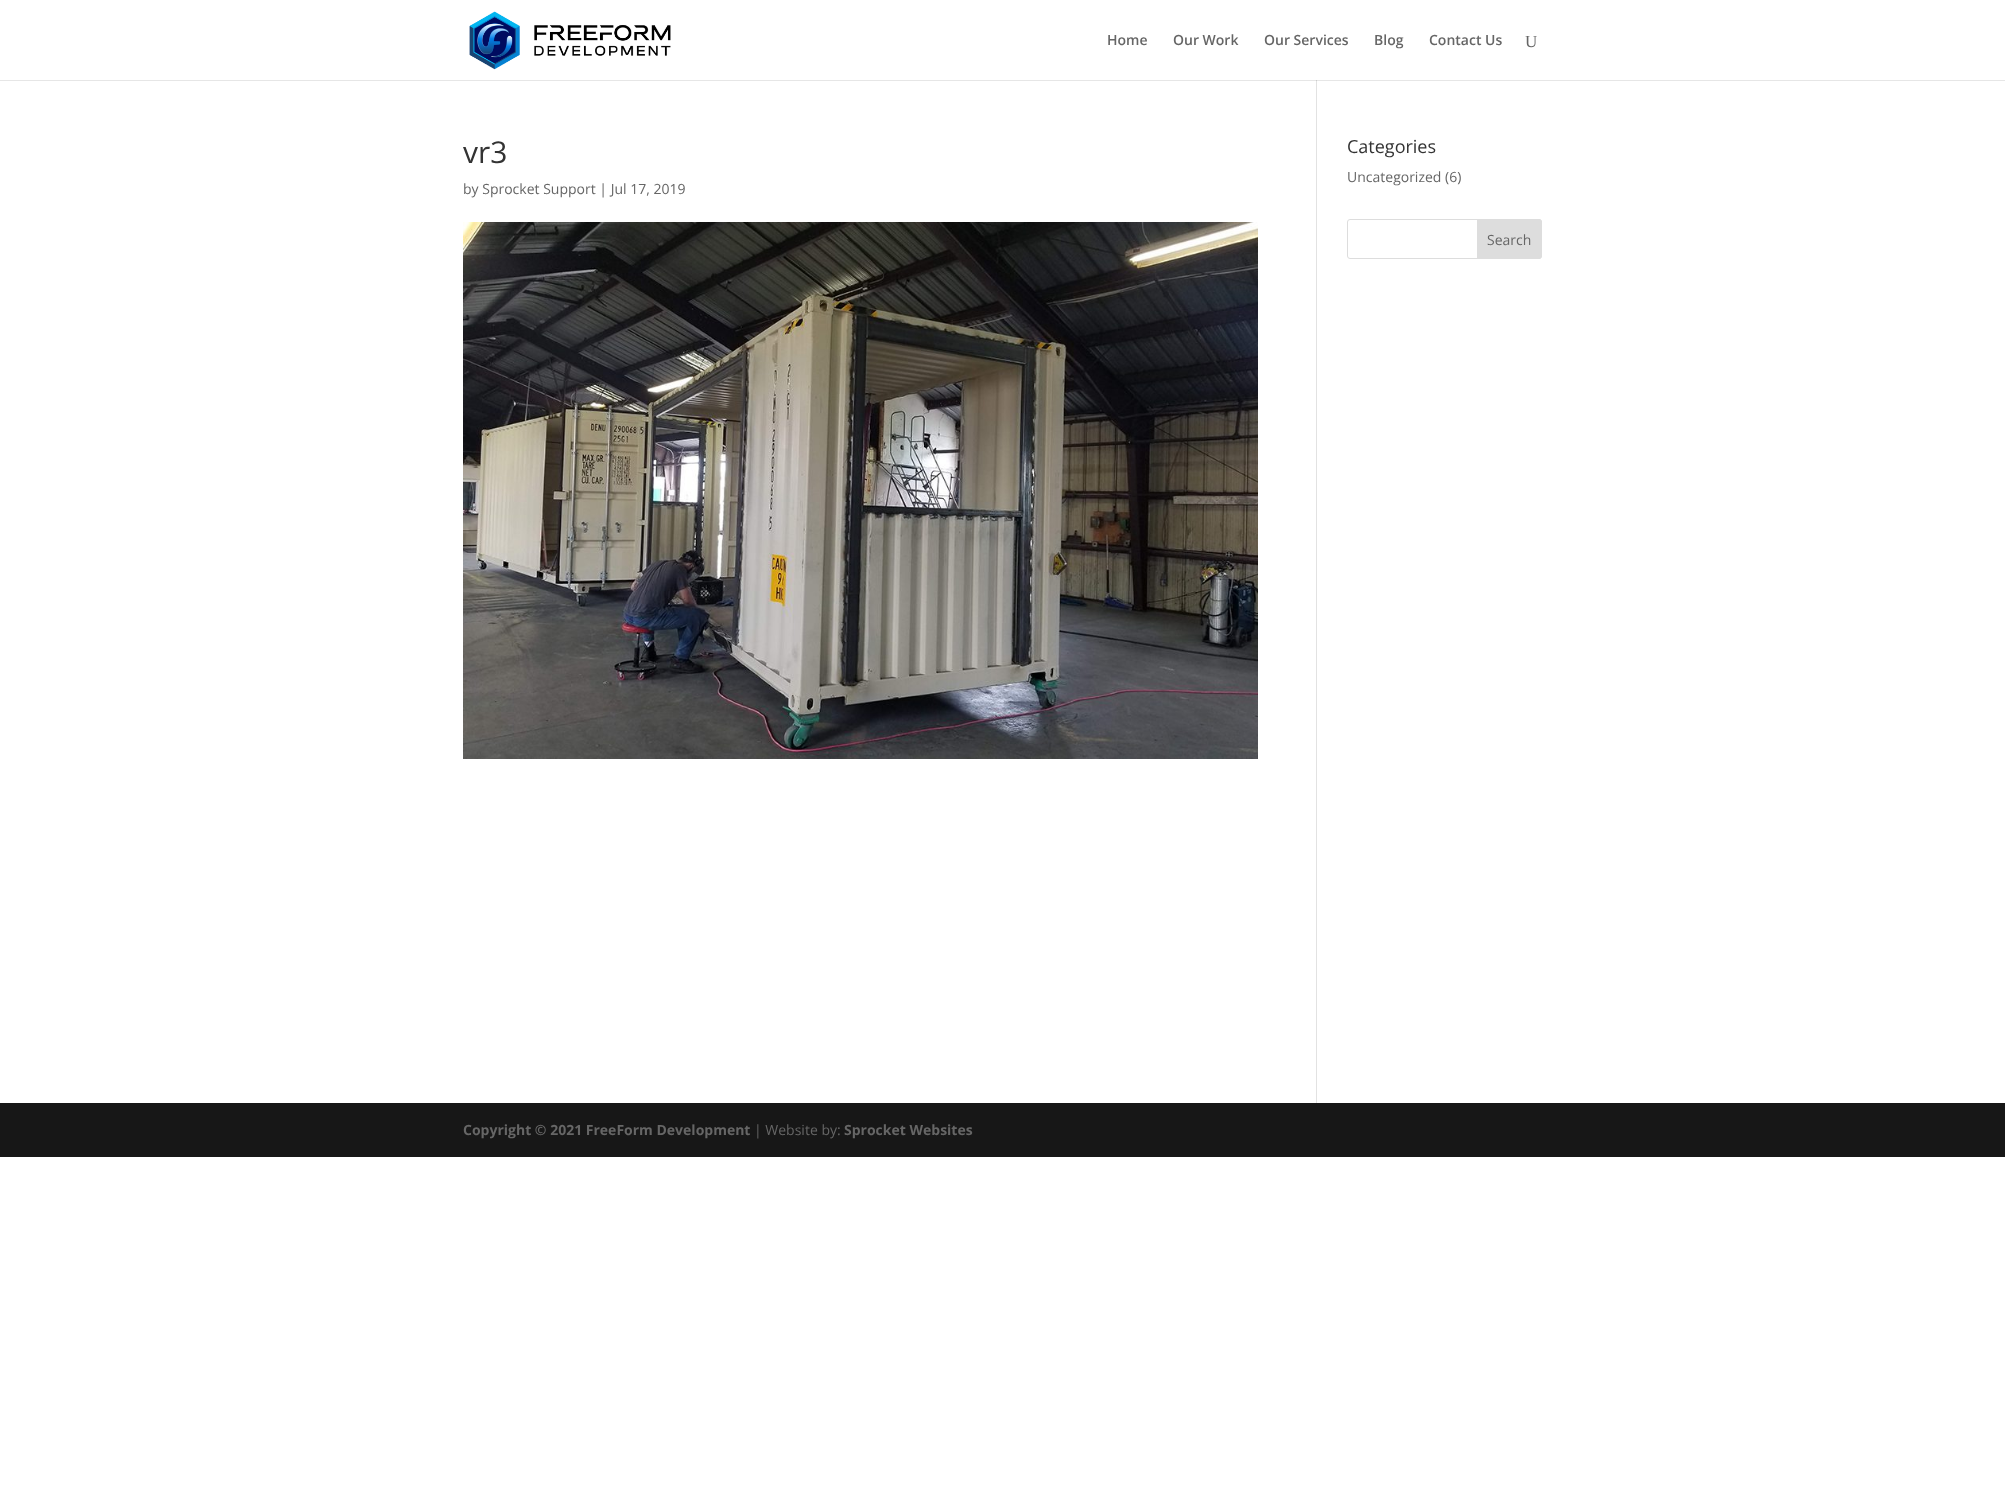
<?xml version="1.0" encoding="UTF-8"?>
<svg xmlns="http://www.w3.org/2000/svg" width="2005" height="1511">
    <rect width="100%" height="100%" fill="#FFFFFF"/>
    <rect x="0" y="80" width="2005" height="1" fill="#E6E6E6"/>
    <rect x="1316" y="79" width="1" height="1024" fill="#E2E2E2"/>
    <rect x="1316" y="79" width="1" height="1" fill="#FFFFFF"/>
    <image x="469" y="11" width="202" height="59" href="img_01.png"/>
    <text x="1107" y="45" font-family="Open Sans" font-size="14" font-weight="600" fill="#666666">Home</text>
    <text x="1173" y="45" font-family="Open Sans" font-size="14" font-weight="600" fill="#666666">Our Work</text>
    <text x="1264" y="45" font-family="Open Sans" font-size="14" font-weight="600" fill="#666666">Our Services</text>
    <text x="1374" y="45" font-family="Open Sans" font-size="14" font-weight="600" fill="#666666">Blog</text>
    <text x="1429" y="45" font-family="Open Sans" font-size="14" font-weight="600" fill="#666666">Contact Us</text>
    <text x="1525" y="47" font-family="Liberation Serif" font-size="17" fill="#666666">U</text>
    <rect x="1316" y="80" width="1" height="1" fill="#CBCBCB"/>
    <text x="463" y="163" font-family="Open Sans" font-size="30" fill="#333333">vr3</text>
    <text x="463" y="194" font-family="Open Sans" font-size="14" fill="#666666">by Sprocket Support | Jul 17, 2019</text>
    <image x="463" y="222" width="795" height="537" href="img_02.png"/>
    <text x="1347" y="153" font-family="Open Sans" font-size="18" fill="#333333">Categories</text>
    <text x="1347" y="182" font-family="Open Sans" font-size="14" fill="#666666">Uncategorized (6)</text>
    <rect x="1347.5" y="219.5" width="194" height="39" rx="2.5" fill="none" stroke="#DDDDDD"/>
    <path d="M 1477.5 219.5 H 1539 C 1540.5 219.5 1541.5 220.5 1541.5 222 V 256 C 1541.5 257.5 1540.5 258.5 1539 258.5 H 1477.5 Z" fill="#DDDDDD" stroke="#DDDDDD"/>
    <text x="1487" y="245" font-family="Open Sans" font-size="14" fill="#666666">Search</text>
    <rect x="0" y="1103" width="2005" height="54" fill="#171717"/>
    <text x="463" y="1135" font-family="Open Sans" font-size="14" font-weight="700" fill="#666666">Copyright © 2021 FreeForm Development</text>
    <text x="754" y="1135" font-family="Open Sans" font-size="14" fill="#666666">| Website by:</text>
    <text x="844" y="1135" font-family="Open Sans" font-size="14" font-weight="700" fill="#666666">Sprocket Websites</text>
</svg>
